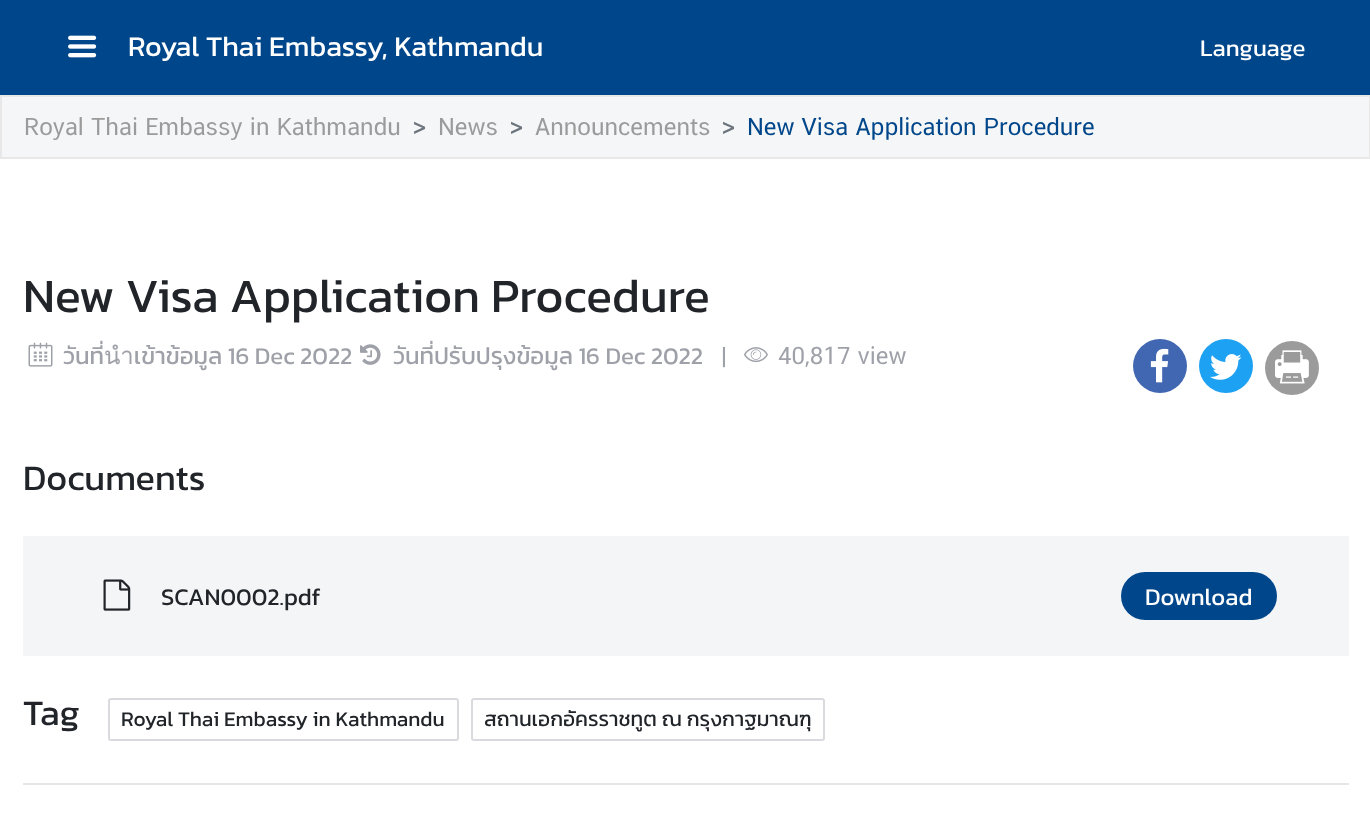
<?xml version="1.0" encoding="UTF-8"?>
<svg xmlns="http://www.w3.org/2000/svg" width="1370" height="823">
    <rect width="100%" height="100%" fill="#FFFFFF"/>
    <rect x="0" y="0" width="1370" height="95" fill="#00468A"/>
    <image x="68" y="35" width="29" height="23" href="img_01.png"/>
    <text x="128" y="56" font-family="Kanit" font-size="28.75" fill="#FFFFFF">Royal Thai Embassy, Kathmandu</text>
    <text x="1200" y="56" font-family="Kanit" font-size="24" fill="#FFFFFF">Language</text>
    <rect x="1" y="96" width="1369" height="62" fill="#F5F6F7" stroke="#E8E8E9" stroke-width="2"/>
    <text x="24" y="135" font-family="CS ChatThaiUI" font-size="24" fill="#9B9B9B">Royal Thai Embassy in Kathmandu</text>
    <text x="413" y="135" font-family="Kanit" font-size="24" fill="#6C757D">&gt;</text>
    <text x="438" y="135" font-family="CS ChatThaiUI" font-size="24" fill="#9B9B9B">News</text>
    <text x="510" y="135" font-family="Kanit" font-size="24" fill="#6C757D">&gt;</text>
    <text x="535" y="135" font-family="CS ChatThaiUI" font-size="24" fill="#9B9B9B">Announcements</text>
    <text x="722" y="135" font-family="Kanit" font-size="24" fill="#6C757D">&gt;</text>
    <text x="747" y="135" font-family="CS ChatThaiUI" font-size="24" fill="#00468A">New Visa Application Procedure</text>
    <text x="23" y="312" font-family="Kanit" font-size="48" fill="#212529">New Visa Application Procedure</text>
    <image x="28" y="342" width="25" height="25" href="img_02.png"/>
    <text x="63" y="364" font-family="Kanit" font-size="24" fill="#9FA1A9">วันที่นำเข้าข้อมูล 16 Dec 2022</text>
    <image x="360" y="344" width="21" height="21" href="img_03.png"/>
    <text x="393" y="364" font-family="Kanit" font-size="24" fill="#9FA1A9">วันที่ปรับปรุงข้อมูล 16 Dec 2022</text>
    <text x="721" y="364" font-family="CS ChatThaiUI" font-size="24" fill="#9FA1A9">|</text>
    <image x="744" y="347" width="24" height="16" href="img_04.png"/>
    <text x="778" y="364" font-family="CS ChatThaiUI" font-size="24" fill="#9FA1A9">40,817 view</text>
    <circle cx="1160" cy="366" r="27" fill="#4267B2"/>
    <image x="1150" y="348" width="19" height="35" href="img_05.png"/>
    <circle cx="1226" cy="366" r="27" fill="#1DA1F2"/>
    <image x="1210" y="354" width="32" height="26" href="img_06.png"/>
    <circle cx="1292" cy="368" r="27" fill="#9B9B9B"/>
    <image x="1275" y="350" width="34" height="34" href="img_07.png"/>
    <text x="23" y="490" font-family="Kanit" font-size="36" fill="#212529">Documents</text>
    <rect x="23" y="536" width="1326" height="120" fill="#F4F5F7"/>
    <image x="103" y="579" width="28" height="32" href="img_08.png"/>
    <text x="161" y="605" font-family="Kanit" font-size="24" fill="#212529">SCAN0002.pdf</text>
    <rect x="1121" y="572" width="156" height="48" rx="24" fill="#00468A"/>
    <text x="1145" y="605" font-family="Kanit" font-size="24" fill="#FFFFFF">Download</text>
    <text x="23" y="725" font-family="Kanit" font-size="36" fill="#212529">Tag</text>
    <rect x="109" y="699" width="349" height="41" rx="2" fill="none" stroke="#D9DADD" stroke-width="2"/>
    <text x="121" y="726" font-family="Kanit" font-size="21" fill="#212529">Royal Thai Embassy in Kathmandu</text>
    <rect x="472" y="699" width="352" height="41" rx="2" fill="none" stroke="#D9DADD" stroke-width="2"/>
    <text x="484" y="726" font-family="Kanit" font-size="21" fill="#212529">สถานเอกอัครราชทูต ณ กรุงกาฐมาณฑุ</text>
    <rect x="23" y="783" width="1326" height="2" fill="#E6E6E6"/>
</svg>
